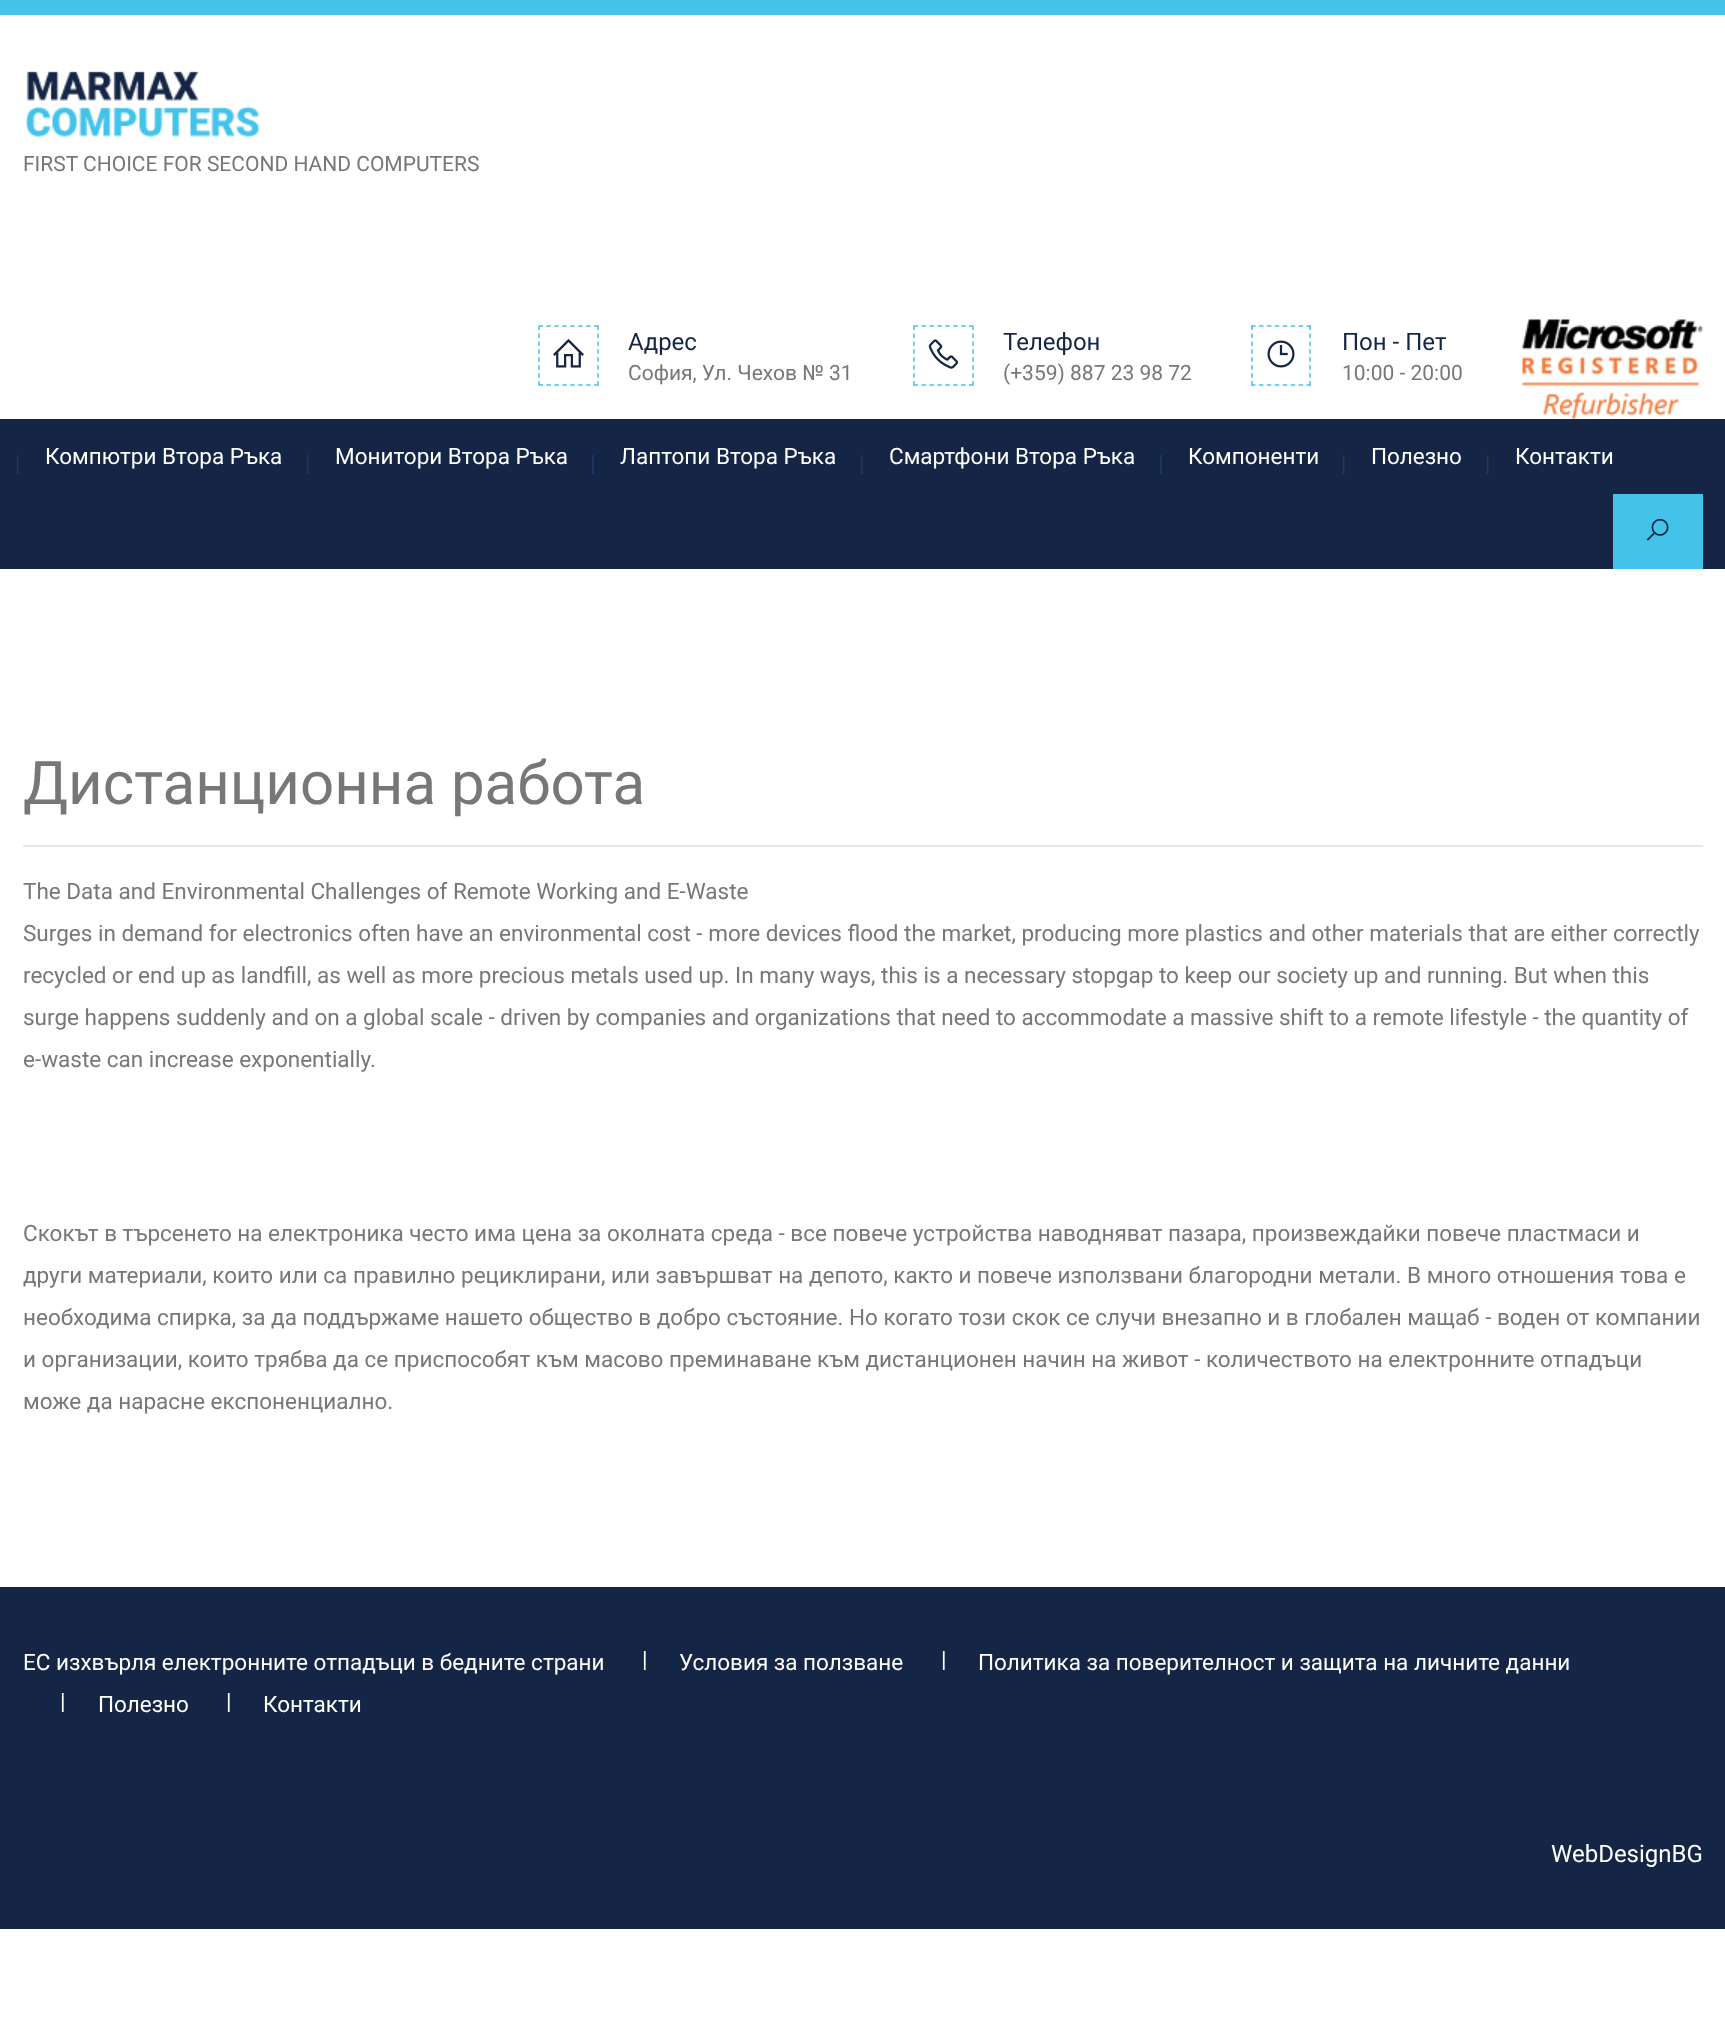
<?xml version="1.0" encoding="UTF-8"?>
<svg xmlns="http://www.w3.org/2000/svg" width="1725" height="2023">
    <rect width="100%" height="100%" fill="#FFFFFF"/>
    <rect x="0" y="0" width="1725" height="15" fill="#43C3EA"/>
    <image x="25" y="71" width="235" height="66" href="img_01.png"/>
    <text x="23" y="171" font-family="Roboto" font-size="21" fill="#777777">FIRST CHOICE FOR SECOND HAND COMPUTERS</text>
    <path d="M 538.5 326 H 598.5 M 598 325.5 V 385.5 M 538.5 385 H 598.5 M 539 325.5 V 385.5" fill="none" stroke="#43C3EA" stroke-width="1.5" stroke-dasharray="4.5 3.44"/>
    <image x="553" y="339" width="31" height="29" href="img_02.png"/>
    <text x="628" y="350" font-family="Roboto" font-size="24" fill="#152545">Адрес</text>
    <text x="628" y="380" font-family="Roboto" font-size="21" fill="#777777">София, Ул. Чехов № 31</text>
    <path d="M 913.5 326 H 973.5 M 973 325.5 V 385.5 M 913.5 385 H 973.5 M 914 325.5 V 385.5" fill="none" stroke="#43C3EA" stroke-width="1.5" stroke-dasharray="4.5 3.44"/>
    <image x="928" y="339" width="31" height="30" href="img_03.png"/>
    <text x="1003" y="350" font-family="Roboto" font-size="24" fill="#152545">Телефон</text>
    <text x="1003" y="380" font-family="Roboto" font-size="21" fill="#777777">(+359) 887 23 98 72</text>
    <path d="M 1251 326 H 1311 M 1310 325.5 V 385.5 M 1251 385 H 1311 M 1252 325.5 V 385.5" fill="none" stroke="#43C3EA" stroke-width="1.5" stroke-dasharray="4.5 3.44"/>
    <image x="1267" y="340" width="28" height="28" href="img_04.png"/>
    <text x="1342" y="350" font-family="Roboto" font-size="24" fill="#152545">Пон - Пет</text>
    <text x="1342" y="380" font-family="Roboto" font-size="21" fill="#777777">10:00 - 20:00</text>
    <image x="1522" y="319" width="181" height="100" href="img_05.png"/>
    <rect x="0" y="419" width="1725" height="150" fill="#152545"/>
    <text x="15" y="471" font-family="Roboto" font-size="22.5" fill="#1E386C">|</text>
    <text x="45" y="464" font-family="Roboto" font-size="22.5" fill="#FFFFFF">Компютри Втора Ръка</text>
    <text x="305" y="471" font-family="Roboto" font-size="22.5" fill="#1E386C">|</text>
    <text x="335" y="464" font-family="Roboto" font-size="22.5" fill="#FFFFFF">Монитори Втора Ръка</text>
    <text x="590" y="471" font-family="Roboto" font-size="22.5" fill="#1E386C">|</text>
    <text x="620" y="464" font-family="Roboto" font-size="22.5" fill="#FFFFFF">Лаптопи Втора Ръка</text>
    <text x="859" y="471" font-family="Roboto" font-size="22.5" fill="#1E386C">|</text>
    <text x="889" y="464" font-family="Roboto" font-size="22.5" fill="#FFFFFF">Смартфони Втора Ръка</text>
    <text x="1158" y="471" font-family="Roboto" font-size="22.5" fill="#1E386C">|</text>
    <text x="1188" y="464" font-family="Roboto" font-size="22.5" fill="#FFFFFF">Компоненти</text>
    <text x="1341" y="471" font-family="Roboto" font-size="22.5" fill="#1E386C">|</text>
    <text x="1371" y="464" font-family="Roboto" font-size="22.5" fill="#FFFFFF">Полезно</text>
    <text x="1485" y="471" font-family="Roboto" font-size="22.5" fill="#1E386C">|</text>
    <text x="1515" y="464" font-family="Roboto" font-size="22.5" fill="#FFFFFF">Контакти</text>
    <rect x="1613" y="494" width="90" height="75" fill="#43C3EA"/>
    <image x="1646" y="518" width="23" height="23" href="img_06.png"/>
    <text x="23" y="804" font-family="Roboto" font-size="60" fill="#777777">Дистанционна работа</text>
    <rect x="23" y="845" width="1680" height="2" fill="#E6E6E6"/>
    <text font-family="Roboto" font-size="22.5" fill="#777777">
        <tspan x="23" y="899">The Data and Environmental Challenges of Remote Working and E-Waste</tspan>
        <tspan x="23" y="941">Surges in demand for electronics often have an environmental cost - more devices flood the market, producing more plastics and other materials that are either correctly</tspan>
        <tspan x="23" y="983">recycled or end up as landfill, as well as more precious metals used up. In many ways, this is a necessary stopgap to keep our society up and running. But when this</tspan>
        <tspan x="23" y="1025">surge happens suddenly and on a global scale - driven by companies and organizations that need to accommodate a massive shift to a remote lifestyle - the quantity of</tspan>
        <tspan x="23" y="1067">e-waste can increase exponentially.</tspan>
    </text>
    <text font-family="Roboto" font-size="22.5" fill="#777777">
        <tspan x="23" y="1241">Скокът в търсенето на електроника често има цена за околната среда - все повече устройства наводняват пазара, произвеждайки повече пластмаси и</tspan>
        <tspan x="23" y="1283">други материали, които или са правилно рециклирани, или завършват на депото, както и повече използвани благородни метали. В много отношения това е</tspan>
        <tspan x="23" y="1325">необходима спирка, за да поддържаме нашето общество в добро състояние. Но когато този скок се случи внезапно и в глобален мащаб - воден от компании</tspan>
        <tspan x="23" y="1367">и организации, които трябва да се приспособят към масово преминаване към дистанционен начин на живот - количеството на електронните отпадъци</tspan>
        <tspan x="23" y="1409">може да нарасне експоненциално.</tspan>
    </text>
    <rect x="0" y="1587" width="1725" height="342" fill="#152545"/>
    <text x="23" y="1670" font-family="Roboto" font-size="22.5" fill="#FFFFFF">ЕС изхвърля електронните отпадъци в бедните страни</text>
    <text x="642" y="1667" font-family="Roboto" font-size="22.5" fill="#FFFFFF">|</text>
    <text x="679" y="1670" font-family="Roboto" font-size="22.5" fill="#FFFFFF">Условия за ползване</text>
    <text x="941" y="1667" font-family="Roboto" font-size="22.5" fill="#FFFFFF">|</text>
    <text x="978" y="1670" font-family="Roboto" font-size="22.5" fill="#FFFFFF">Политика за поверителност и защита на личните данни</text>
    <text x="60" y="1709" font-family="Roboto" font-size="22.5" fill="#FFFFFF">|</text>
    <text x="98" y="1712" font-family="Roboto" font-size="22.5" fill="#FFFFFF">Полезно</text>
    <text x="226" y="1709" font-family="Roboto" font-size="22.5" fill="#FFFFFF">|</text>
    <text x="263" y="1712" font-family="Roboto" font-size="22.5" fill="#FFFFFF">Контакти</text>
    <text x="1551" y="1862" font-family="Roboto" font-size="24" fill="#FFFFFF">WebDesignBG</text>
</svg>
